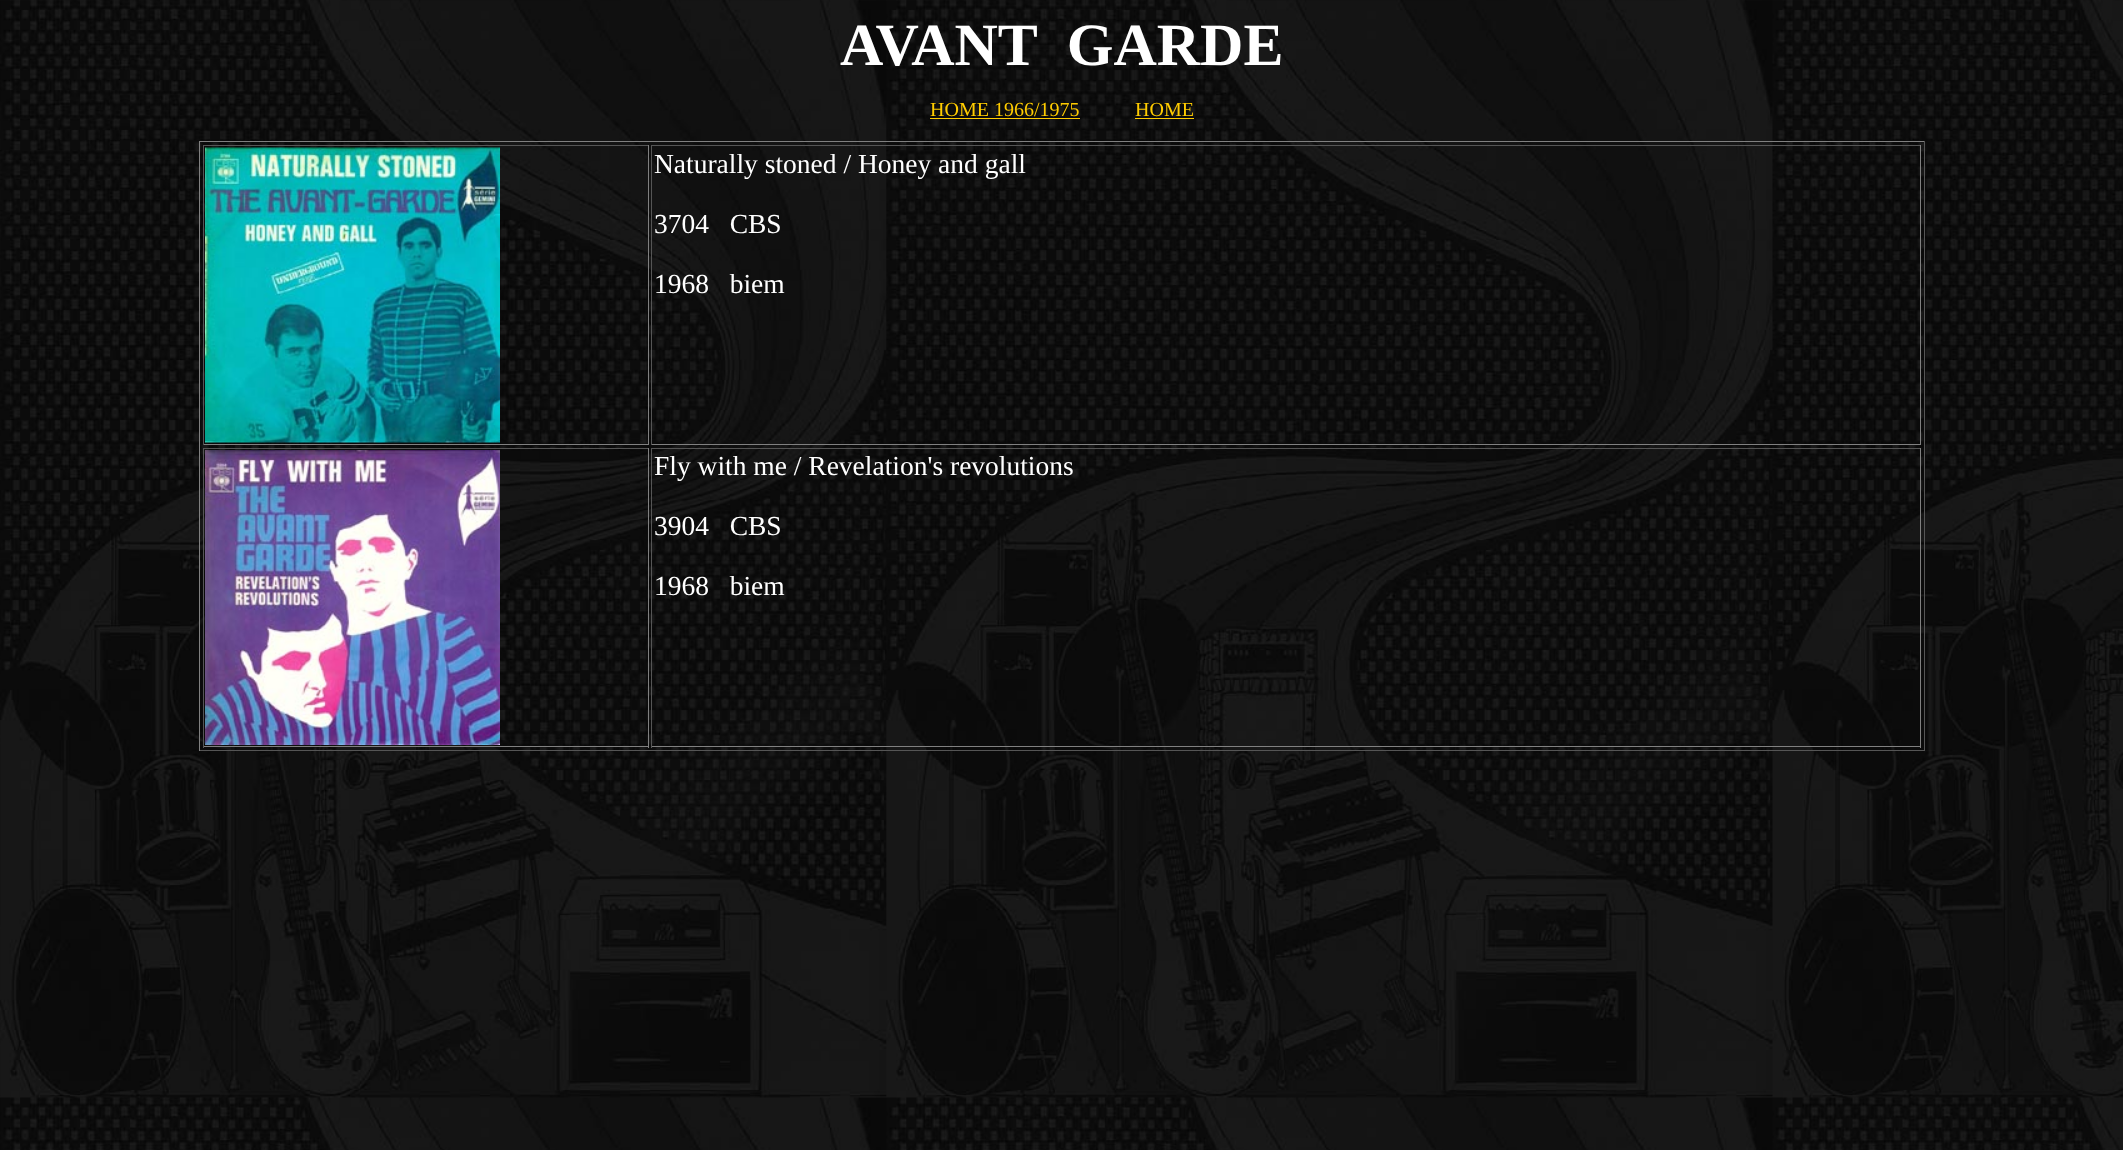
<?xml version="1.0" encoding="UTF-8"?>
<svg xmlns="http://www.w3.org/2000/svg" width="2123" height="1150">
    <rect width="100%" height="100%" fill="#FFFFFF"/>
    <image x="0" y="0" width="2123" height="1150" href="img_01.png"/>
    <text x="840" y="65" font-family="Liberation Serif" font-size="60" font-weight="700" fill="#FFFFFF" xml:space="preserve">AVANT  GARDE</text>
    <text x="930" y="116" font-family="Liberation Serif" font-size="20" fill="#FFCC00">HOME 1966/1975</text>
    <rect x="930" y="118" width="150" height="1" fill="#FFCC00"/>
    <text x="1135" y="116" font-family="Liberation Serif" font-size="20" fill="#FFCC00">HOME</text>
    <rect x="1135" y="118" width="59" height="1" fill="#FFCC00"/>
    <rect x="199" y="141" width="1726" height="1" fill="#808080"/>
    <rect x="1924" y="141" width="1" height="610" fill="#555555"/>
    <rect x="199" y="750" width="1726" height="1" fill="#555555"/>
    <rect x="199" y="141" width="1" height="610" fill="#808080"/>
    <rect x="203" y="145" width="446" height="1" fill="#555555"/>
    <rect x="648" y="145" width="1" height="300" fill="#808080"/>
    <rect x="203" y="444" width="446" height="1" fill="#808080"/>
    <rect x="203" y="145" width="1" height="300" fill="#555555"/>
    <image x="205" y="147" width="295" height="296" href="img_02.png"/>
    <rect x="651" y="145" width="1270" height="1" fill="#555555"/>
    <rect x="1920" y="145" width="1" height="300" fill="#808080"/>
    <rect x="651" y="444" width="1270" height="1" fill="#808080"/>
    <rect x="651" y="145" width="1" height="300" fill="#555555"/>
    <text x="654" y="173" font-family="Liberation Serif" font-size="27.5" fill="#FFFFFF">Naturally stoned / Honey and gall</text>
    <text x="654" y="233" font-family="Liberation Serif" font-size="27.5" fill="#FFFFFF" xml:space="preserve">3704   CBS</text>
    <text x="654" y="293" font-family="Liberation Serif" font-size="27.5" fill="#FFFFFF" xml:space="preserve">1968   biem</text>
    <rect x="203" y="448" width="446" height="1" fill="#555555"/>
    <rect x="648" y="448" width="1" height="300" fill="#808080"/>
    <rect x="203" y="746" width="446" height="1" fill="#808080"/>
    <rect x="203" y="448" width="1" height="300" fill="#555555"/>
    <image x="205" y="450" width="295" height="295" href="img_03.png"/>
    <rect x="651" y="448" width="1270" height="1" fill="#555555"/>
    <rect x="1920" y="448" width="1" height="300" fill="#808080"/>
    <rect x="651" y="746" width="1270" height="1" fill="#808080"/>
    <rect x="651" y="448" width="1" height="300" fill="#555555"/>
    <text x="654" y="475" font-family="Liberation Serif" font-size="27.5" fill="#FFFFFF">Fly with me / Revelation's revolutions</text>
    <text x="654" y="535" font-family="Liberation Serif" font-size="27.5" fill="#FFFFFF" xml:space="preserve">3904   CBS</text>
    <text x="654" y="595" font-family="Liberation Serif" font-size="27.5" fill="#FFFFFF" xml:space="preserve">1968   biem</text>
</svg>
